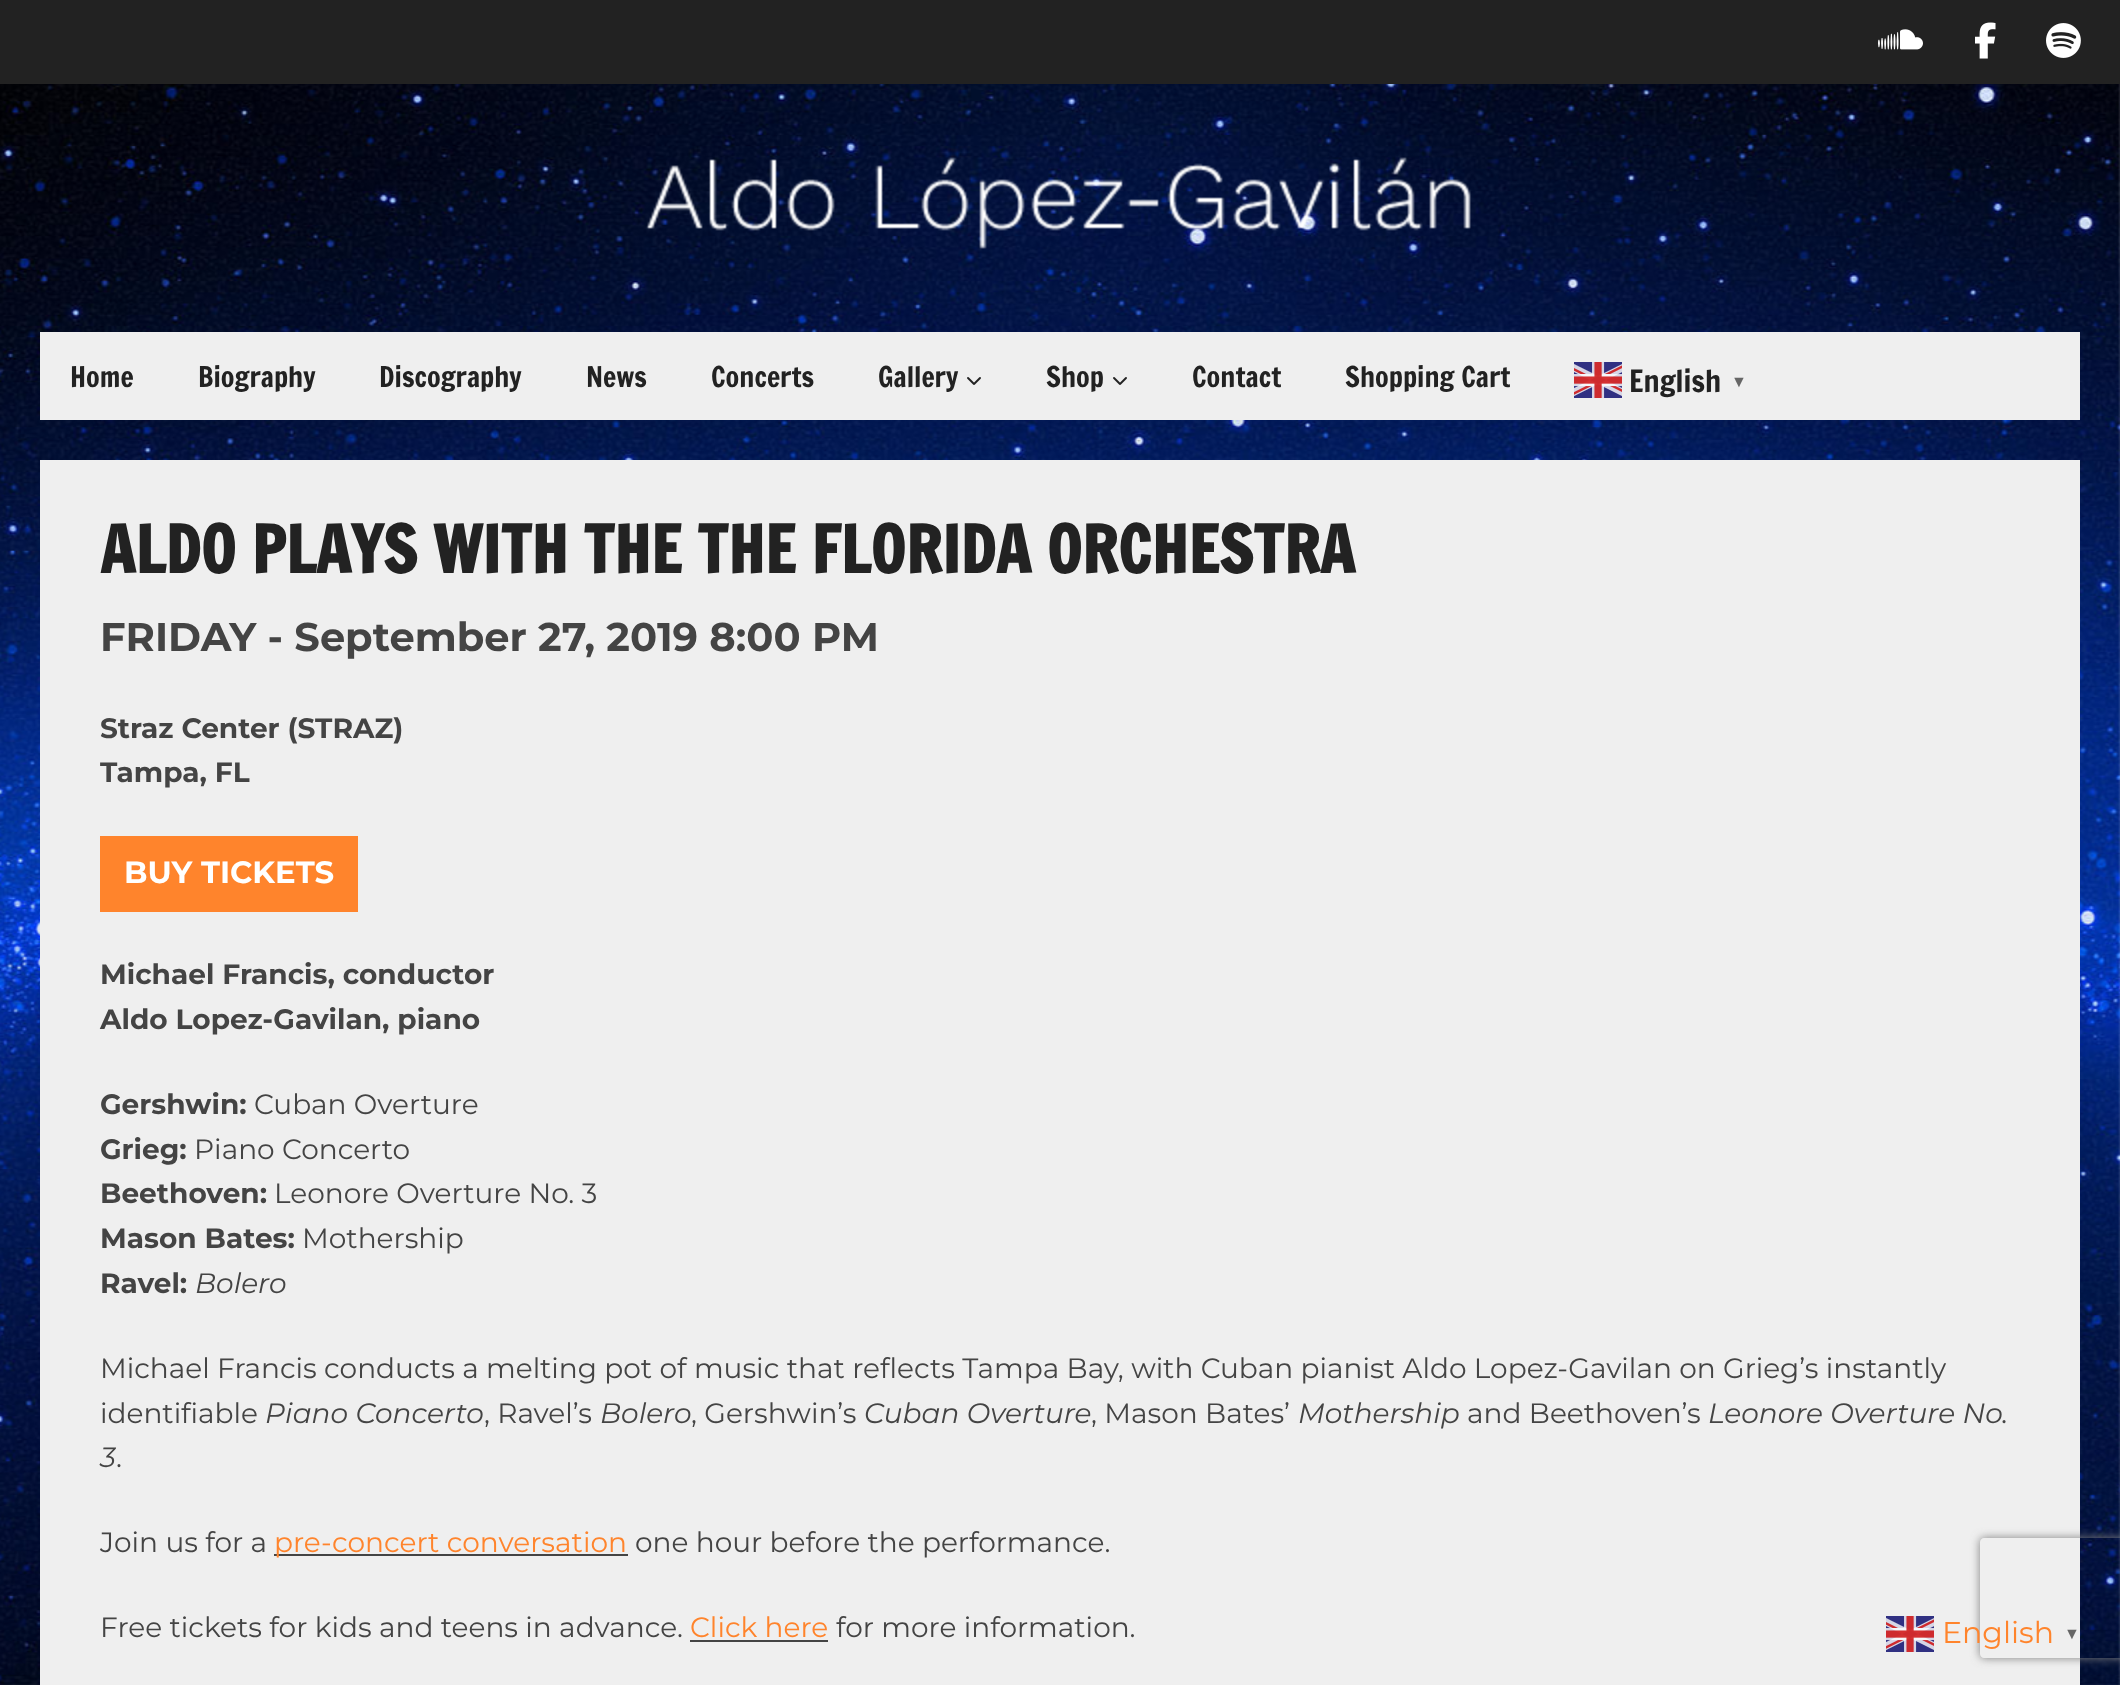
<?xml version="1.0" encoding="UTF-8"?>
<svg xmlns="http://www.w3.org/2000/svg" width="2120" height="1685">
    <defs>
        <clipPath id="clip1"><path d="M 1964 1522 H 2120 V 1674 H 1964 Z M 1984 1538 H 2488 C 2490 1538 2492 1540 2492 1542 V 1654 C 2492 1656 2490 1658 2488 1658 H 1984 C 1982 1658 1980 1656 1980 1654 V 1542 C 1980 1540 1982 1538 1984 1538 Z" clip-rule="evenodd"/></clipPath>
        <filter id="blur1" x="-50%" y="-200%" width="200%" height="500%"><feGaussianBlur stdDeviation="5"/></filter>
    </defs>
    <rect width="100%" height="100%" fill="#FFFFFF"/>
    <image x="0" y="84" width="2120" height="1601" href="img_01.png"/>
    <rect x="0" y="0" width="2120" height="84" fill="#222222"/>
    <image x="1878" y="29" width="45" height="21" href="img_02.png"/>
    <image x="1975" y="22" width="21" height="37" href="img_03.png"/>
    <image x="2046" y="23" width="35" height="35" href="img_04.png"/>
    <image x="646" y="157" width="825" height="92" href="img_05.png"/>
    <rect x="40" y="332" width="2040" height="88" fill="#EFEFEF"/>
    <text x="70" y="387" font-family="Francois One" font-size="28" fill="#222222">Home</text>
    <text x="198" y="387" font-family="Francois One" font-size="28" fill="#222222">Biography</text>
    <text x="379" y="387" font-family="Francois One" font-size="28" fill="#222222">Discography</text>
    <text x="586" y="387" font-family="Francois One" font-size="28" fill="#222222">News</text>
    <text x="711" y="387" font-family="Francois One" font-size="28" fill="#222222">Concerts</text>
    <text x="878" y="387" font-family="Francois One" font-size="28" fill="#222222">Gallery</text>
    <image x="967" y="377" width="14" height="8" href="img_06.png"/>
    <text x="1046" y="387" font-family="Francois One" font-size="28" fill="#222222">Shop</text>
    <image x="1113" y="377" width="14" height="8" href="img_06.png"/>
    <text x="1192" y="387" font-family="Francois One" font-size="28" fill="#222222">Contact</text>
    <text x="1345" y="387" font-family="Francois One" font-size="28" fill="#222222">Shopping Cart</text>
    <image x="1574" y="362" width="48" height="36" href="img_07.png"/>
    <text x="1629" y="392" font-family="Francois One" font-size="30" fill="#222222">English</text>
    <text x="1731" y="387" font-family="Liberation Serif" font-size="16" font-weight="700" fill="#666666">▼</text>
    <rect x="40" y="460" width="2040" height="1225" fill="#EFEFEF"/>
    <text x="100" y="573" font-family="Francois One" font-size="64" font-weight="700" fill="#222222">ALDO PLAYS WITH THE THE FLORIDA ORCHESTRA</text>
    <text x="100" y="651" font-family="Montserrat" font-size="40" font-weight="700" fill="#444444">FRIDAY - September 27, 2019 8:00 PM</text>
    <text font-family="Montserrat" font-size="28" font-weight="700" fill="#444444">
        <tspan x="100" y="738">Straz Center (STRAZ)</tspan>
        <tspan x="100" y="782">Tampa, FL</tspan>
    </text>
    <rect x="100" y="836" width="258" height="76" fill="#FF842C"/>
    <text x="124" y="883" font-family="Montserrat" font-size="30.75" font-weight="700" fill="#FFFFFF">BUY TICKETS</text>
    <text font-family="Montserrat" font-size="28" font-weight="700" fill="#444444">
        <tspan x="100" y="984">Michael Francis, conductor</tspan>
        <tspan x="100" y="1029">Aldo Lopez-Gavilan, piano</tspan>
    </text>
    <text x="100" y="1114" font-family="Montserrat" font-size="28" font-weight="700" fill="#444444">Gershwin:</text>
    <text x="254" y="1114" font-family="Montserrat" font-size="28" fill="#444444">Cuban Overture</text>
    <text x="100" y="1159" font-family="Montserrat" font-size="28" font-weight="700" fill="#444444">Grieg:</text>
    <text x="194" y="1159" font-family="Montserrat" font-size="28" fill="#444444">Piano Concerto</text>
    <text x="100" y="1203" font-family="Montserrat" font-size="28" font-weight="700" fill="#444444">Beethoven:</text>
    <text x="274" y="1203" font-family="Montserrat" font-size="28" fill="#444444">Leonore Overture No. 3</text>
    <text x="100" y="1248" font-family="Montserrat" font-size="28" font-weight="700" fill="#444444">Mason Bates:</text>
    <text x="302" y="1248" font-family="Montserrat" font-size="28" fill="#444444">Mothership</text>
    <text x="100" y="1293" font-family="Montserrat" font-size="28" font-weight="700" fill="#444444">Ravel:</text>
    <text x="195" y="1293" font-family="Montserrat" font-size="28" font-style="italic" fill="#444444">Bolero</text>
    <text font-family="Montserrat" font-size="28" fill="#444444">
        <tspan x="100" y="1378">Michael Francis conducts a melting pot of music that reflects Tampa Bay, with Cuban pianist Aldo Lopez-Gavilan on Grieg’s instantly</tspan>
        <tspan x="100" y="1423">identifiable</tspan>
    </text>
    <text x="265" y="1423" font-family="Montserrat" font-size="28" font-style="italic" fill="#444444">Piano Concerto</text>
    <text x="484" y="1423" font-family="Montserrat" font-size="28" fill="#444444">, Ravel’s</text>
    <text x="600" y="1423" font-family="Montserrat" font-size="28" font-style="italic" fill="#444444">Bolero</text>
    <text x="691" y="1423" font-family="Montserrat" font-size="28" fill="#444444">, Gershwin’s</text>
    <text x="864" y="1423" font-family="Montserrat" font-size="28" font-style="italic" fill="#444444">Cuban Overture</text>
    <text x="1091" y="1423" font-family="Montserrat" font-size="28" fill="#444444">, Mason Bates’</text>
    <text x="1298" y="1423" font-family="Montserrat" font-size="28" font-style="italic" fill="#444444">Mothership</text>
    <text x="1467" y="1423" font-family="Montserrat" font-size="28" fill="#444444">and Beethoven’s</text>
    <text x="1708" y="1423" font-family="Montserrat" font-size="28" font-style="italic" fill="#444444">Leonore Overture No.</text>
    <text x="100" y="1467" font-family="Montserrat" font-size="28" font-style="italic" fill="#444444">3</text>
    <text x="116" y="1467" font-family="Montserrat" font-size="28" fill="#444444">.</text>
    <text x="100" y="1552" font-family="Montserrat" font-size="28" fill="#444444">Join us for a</text>
    <rect x="274" y="1554" width="354" height="2" fill="#444444"/>
    <text x="274" y="1552" font-family="Montserrat" font-size="28" fill="#FF842C">pre-concert conversation</text>
    <text x="635" y="1552" font-family="Montserrat" font-size="28" fill="#444444">one hour before the performance.</text>
    <text x="100" y="1637" font-family="Montserrat" font-size="28" fill="#444444">Free tickets for kids and teens in advance.</text>
    <text x="690" y="1637" font-family="Montserrat" font-size="28" fill="#FF842C">Click here</text>
    <rect x="690" y="1640" width="138" height="2" fill="#444444"/>
    <text x="836" y="1637" font-family="Montserrat" font-size="28" fill="#444444">for more information.</text>
    <g clip-path="url(#clip1)">
        <rect x="1980" y="1538" width="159" height="120" rx="4" fill="#808080" filter="url(#blur1)"/>
    </g>
    <image x="1886" y="1616" width="48" height="36" href="img_07.png"/>
    <text x="1942" y="1643" font-family="Montserrat" font-size="30" fill="#FF842C">English</text>
    <text x="2064" y="1639" font-family="Liberation Serif" font-size="16" font-weight="700" fill="#666666">▼</text>
</svg>
